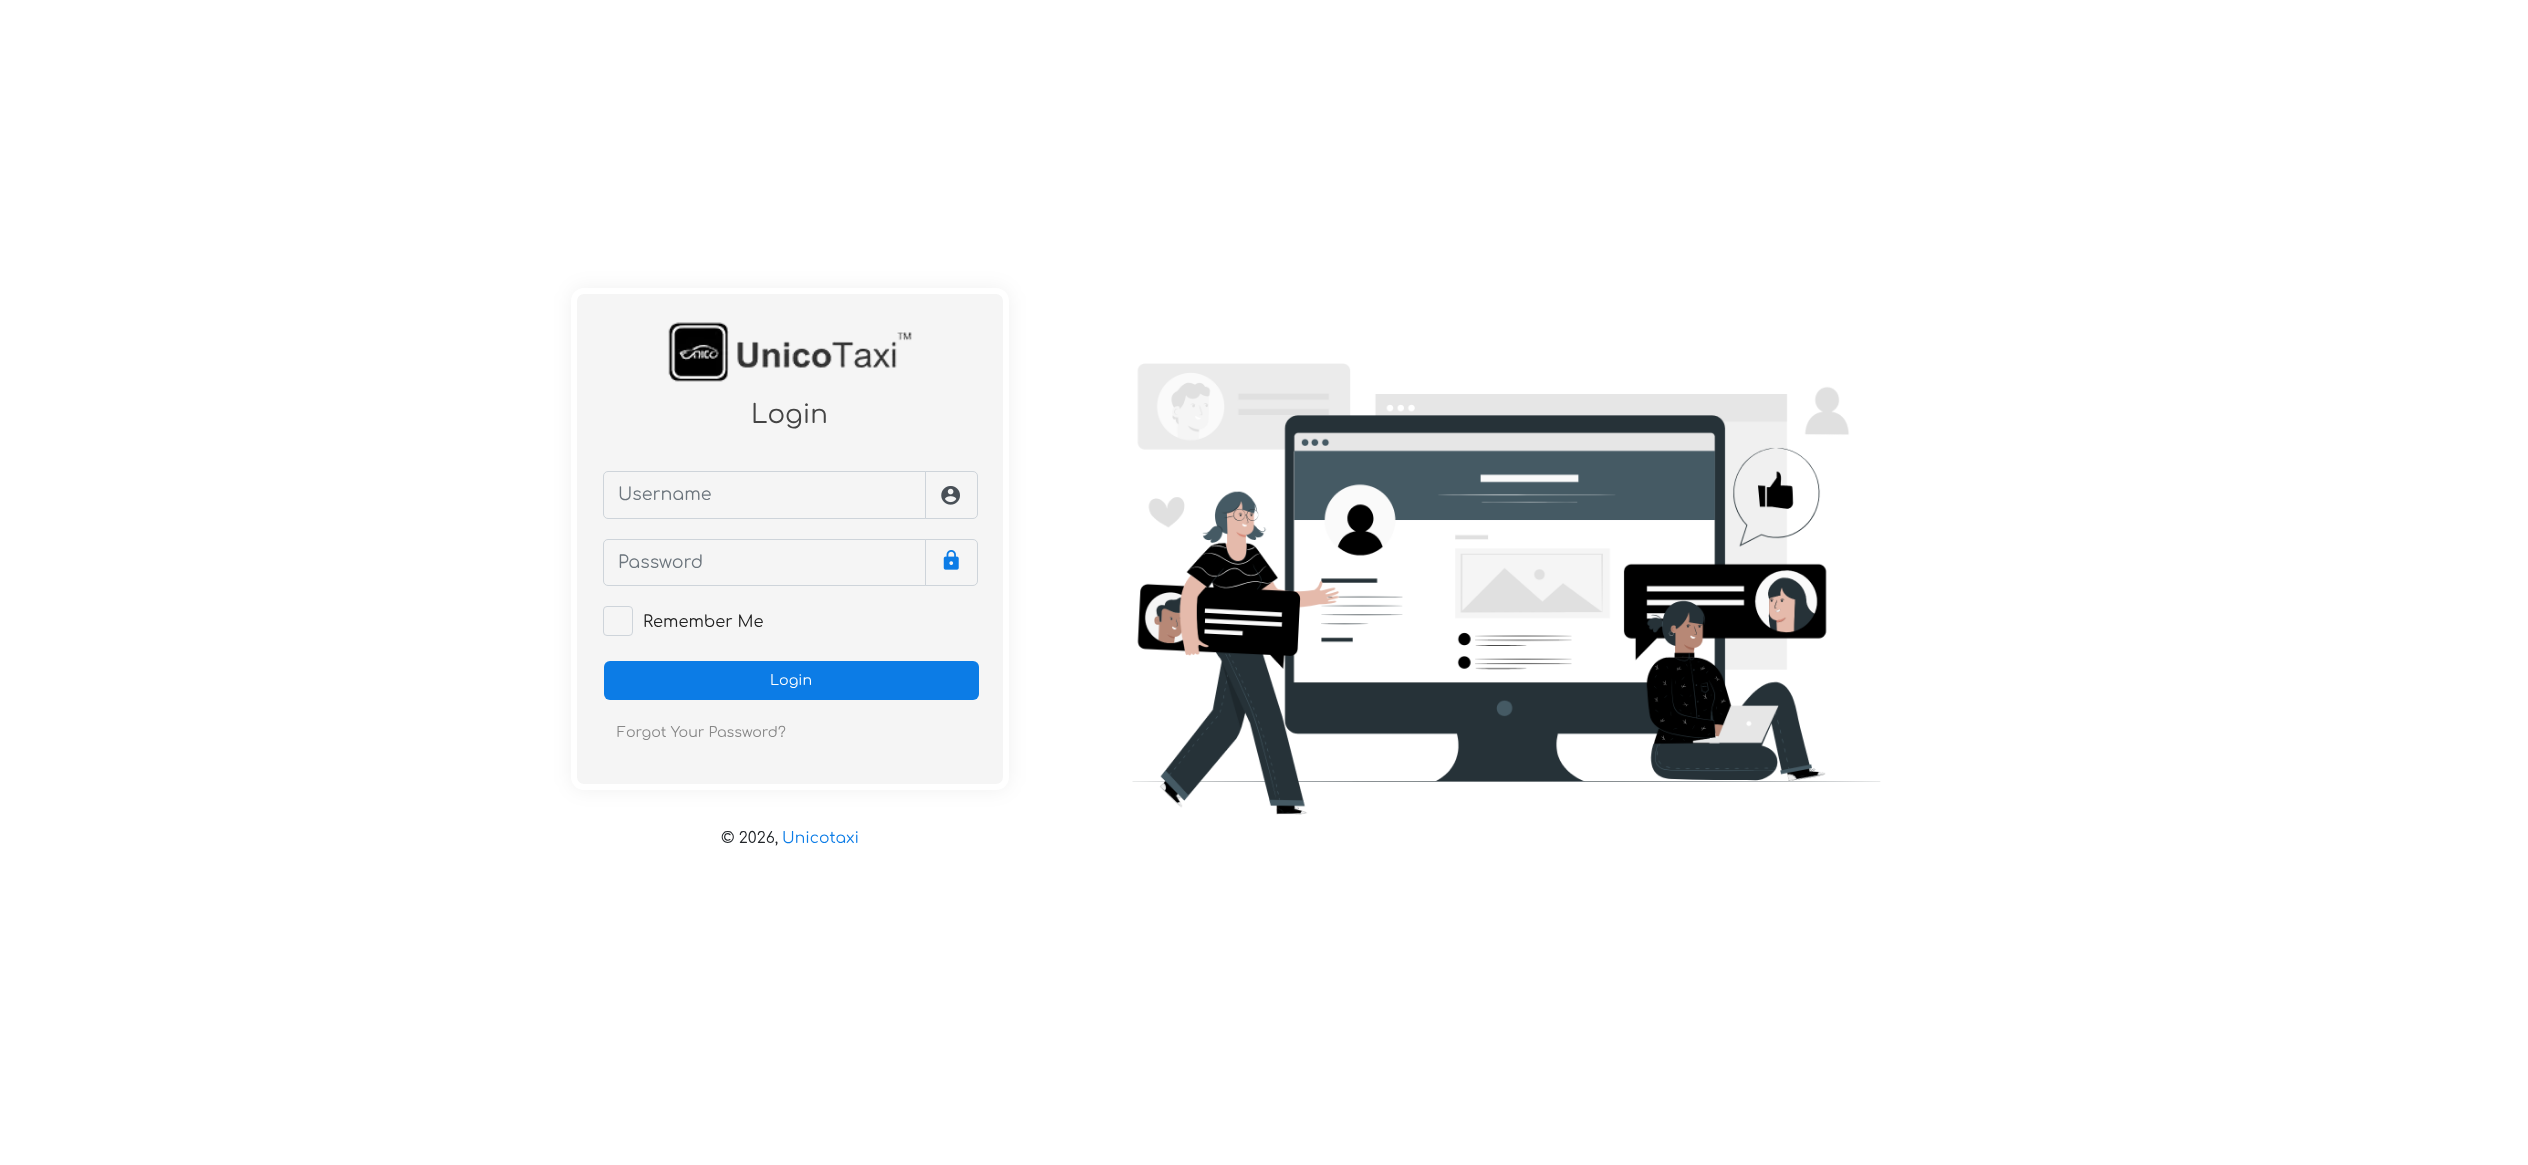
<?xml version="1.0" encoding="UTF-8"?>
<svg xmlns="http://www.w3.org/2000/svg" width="2528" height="1165">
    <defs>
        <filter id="blur1" x="-50%" y="-200%" width="200%" height="500%"><feGaussianBlur stdDeviation="10"/></filter>
    </defs>
    <rect width="100%" height="100%" fill="#FFFFFF"/>
    <rect x="571" y="288" width="438" height="502" rx="13" fill="#292A33" fill-opacity="0.06" filter="url(#blur1)"/>
    <rect x="574" y="291" width="432" height="496" rx="10" fill="#F5F5F5" stroke="#FFFFFF" stroke-width="6"/>
    <image x="668" y="322" width="244" height="60" href="img_01.png"/>
    <text x="751" y="423" font-family="Comfortaa" font-size="26" fill="#444444">Login</text>
    <path d="M 925.5 471.5 H 973 C 975.5 471.5 977.5 473.5 977.5 476 V 514 C 977.5 516.5 975.5 518.5 973 518.5 H 925.5 Z" fill="none" stroke="#CED4DA"/>
    <path d="M 608 471.5 H 925.5 V 518.5 H 608 C 605.5 518.5 603.5 516.5 603.5 514 V 476 C 603.5 473.5 605.5 471.5 608 471.5 Z" fill="none" stroke="#CED4DA"/>
    <text x="618" y="500" font-family="Comfortaa" font-size="17.5" fill="#6C757D">Username</text>
    <image x="941" y="486" width="19" height="19" href="img_02.png"/>
    <path d="M 925.5 539.5 H 973 C 975.5 539.5 977.5 541.5 977.5 544 V 581 C 977.5 583.5 975.5 585.5 973 585.5 H 925.5 Z" fill="none" stroke="#CED4DA"/>
    <path d="M 608 539.5 H 925.5 V 585.5 H 608 C 605.5 585.5 603.5 583.5 603.5 581 V 544 C 603.5 541.5 605.5 539.5 608 539.5 Z" fill="none" stroke="#CED4DA"/>
    <text x="618" y="568" font-family="Comfortaa" font-size="17.5" fill="#6C757D">Password</text>
    <image x="943" y="550" width="16" height="20" href="img_03.png"/>
    <rect x="603.5" y="606.5" width="29" height="29" rx="3.5" fill="none" stroke="#CED4DA"/>
    <text x="643" y="627" font-family="Comfortaa" font-size="16.25" fill="#222222">Remember Me</text>
    <rect x="604" y="661" width="375" height="39" rx="6" fill="#0C7CE6"/>
    <text x="770" y="685" font-family="Comfortaa" font-size="14.25" fill="#FFFFFF">Login</text>
    <text x="617" y="737" font-family="Comfortaa" font-size="14.25" fill="#888888">Forgot Your Password?</text>
    <text x="721" y="843" font-family="Comfortaa" font-size="15.5" fill="#212529">© 2026,</text>
    <text x="782" y="843" font-family="Comfortaa" font-size="15.5" fill="#0C7CE6">Unicotaxi</text>
    <image x="1132" y="363" width="749" height="452" href="img_04.png"/>
</svg>
